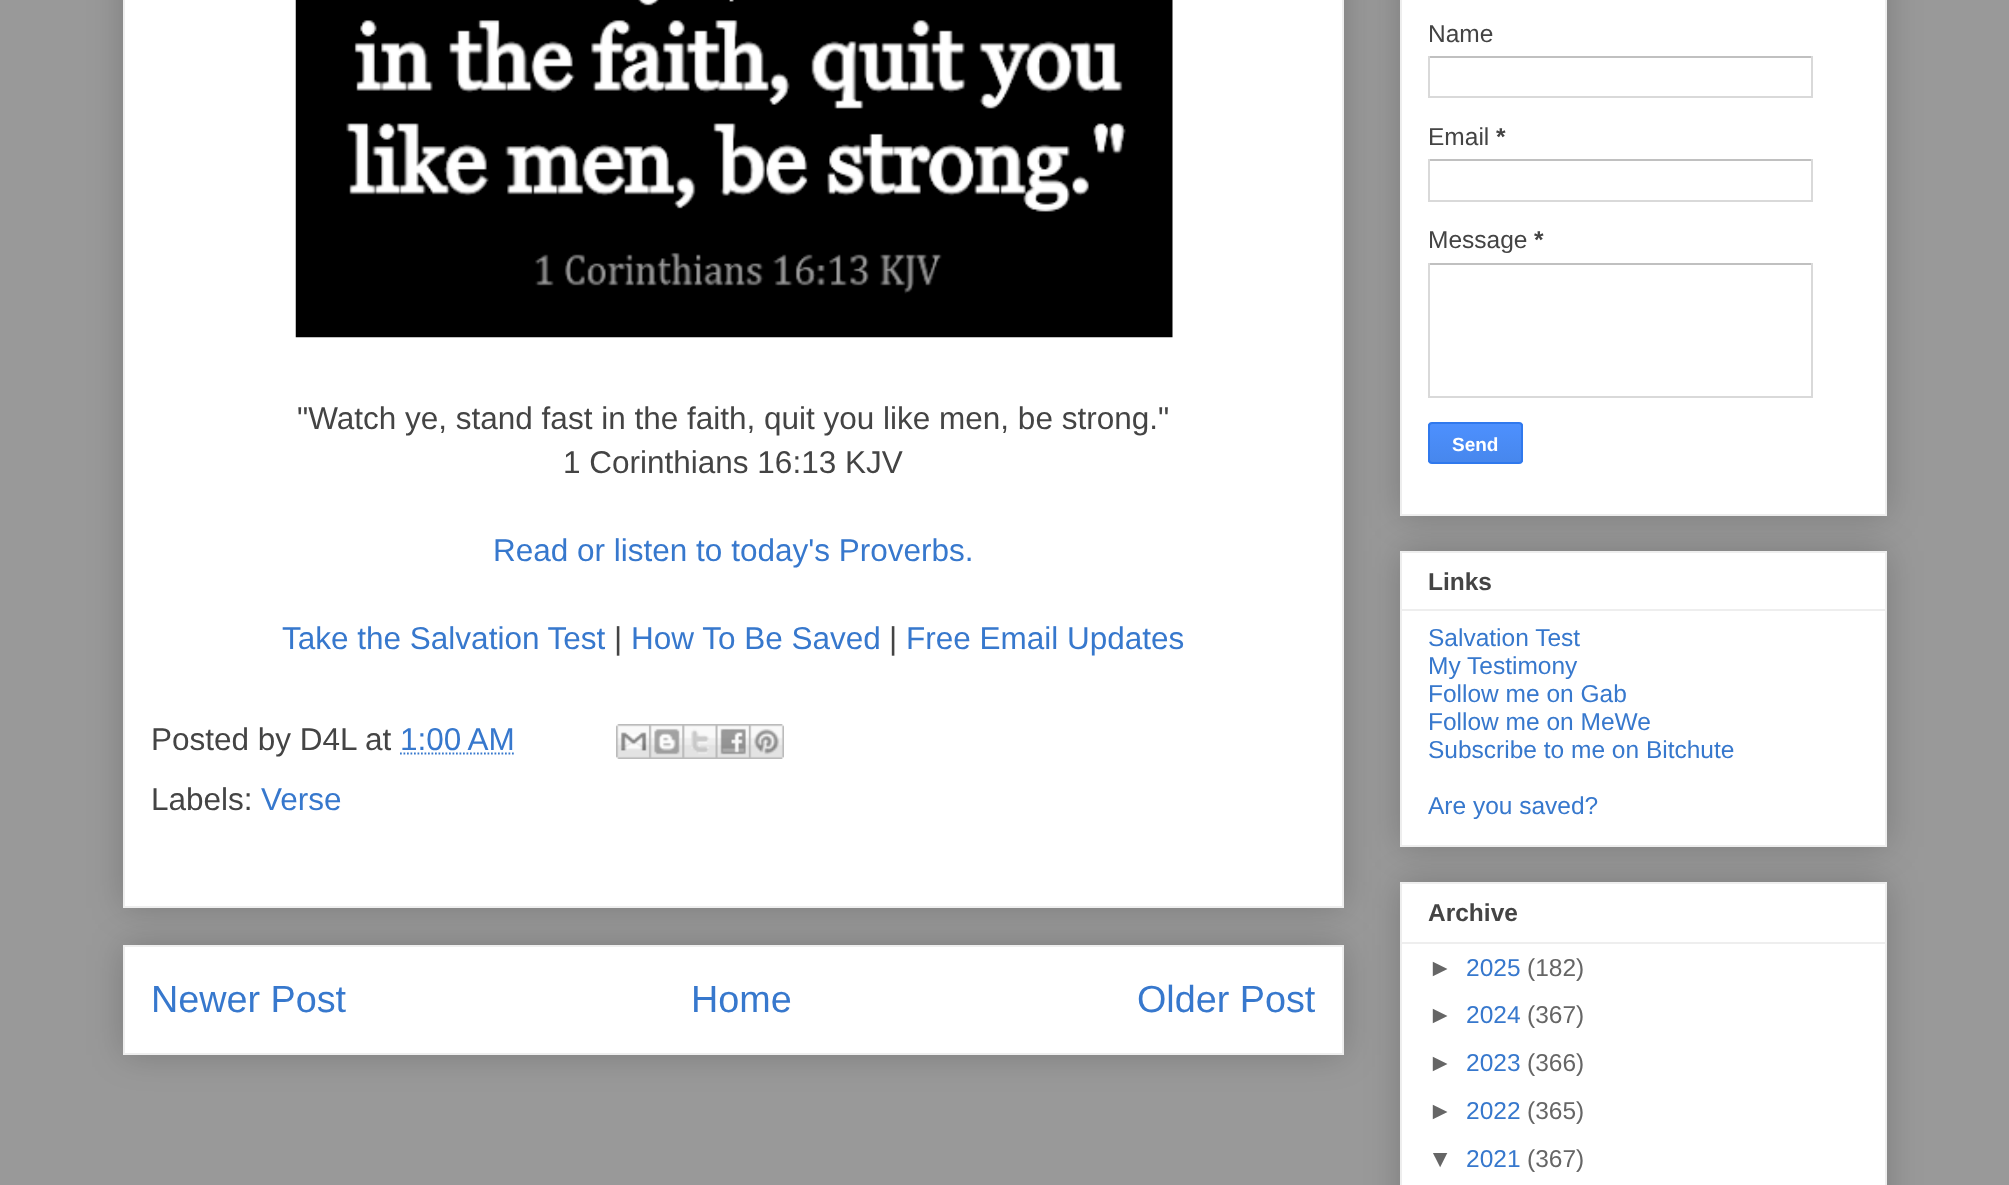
<?xml version="1.0" encoding="UTF-8"?>
<svg xmlns="http://www.w3.org/2000/svg" width="2009" height="1185">
    <defs>
        <filter id="blur1" x="-50%" y="-200%" width="200%" height="500%"><feGaussianBlur stdDeviation="17.5"/></filter>
        <clipPath id="clip1"><rect x="1428" y="422" width="95" height="42" rx="4"/></clipPath>
        <linearGradient id="g1" gradientUnits="userSpaceOnUse" x1="1475" y1="424" x2="1475" y2="462"><stop offset="0" stop-color="#4D90FE"/><stop offset="1" stop-color="#4787ED"/></linearGradient>
    </defs>
    <rect width="100%" height="100%" fill="#999999"/>
    <rect x="123" y="945" width="1221" height="110" fill="#000000" fill-opacity="0.2" filter="url(#blur1)"/>
    <rect x="124" y="946" width="1219" height="108" fill="#FFFFFF" stroke="#EEEEEE" stroke-width="2"/>
    <rect x="123" y="-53" width="1221" height="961" fill="#000000" fill-opacity="0.2" filter="url(#blur1)"/>
    <rect x="124" y="-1" width="1219" height="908" fill="#FFFFFF" stroke="#EEEEEE" stroke-width="2"/>
    <image x="295" y="0" width="878" height="338" href="img_01.png"/>
    <text x="297" y="429" font-family="Liberation Sans" font-size="31.5" fill="#444444">"Watch ye, stand fast in the faith, quit you like men, be strong."</text>
    <text x="563" y="473" font-family="Liberation Sans" font-size="31.5" fill="#444444">1 Corinthians 16:13 KJV</text>
    <text x="493" y="561" font-family="Liberation Sans" font-size="31.5" fill="#3778CD">Read or listen to today's Proverbs.</text>
    <text x="282" y="649" font-family="Liberation Sans" font-size="31.5" fill="#3778CD">Take the Salvation Test</text>
    <text x="614" y="649" font-family="Liberation Sans" font-size="31.5" fill="#444444">|</text>
    <text x="631" y="649" font-family="Liberation Sans" font-size="31.5" fill="#3778CD">How To Be Saved</text>
    <text x="889" y="649" font-family="Liberation Sans" font-size="31.5" fill="#444444">|</text>
    <text x="906" y="649" font-family="Liberation Sans" font-size="31.5" fill="#3778CD">Free Email Updates</text>
    <text x="151" y="750" font-family="Liberation Sans" font-size="31.5" fill="#444444">Posted by D4L</text>
    <text x="365" y="750" font-family="Liberation Sans" font-size="31.5" fill="#444444">at</text>
    <text x="400" y="750" font-family="Liberation Sans" font-size="31.5" fill="#3778CD">1:00 AM</text>
    <path d="M 400 753.5 H 514.5" fill="none" stroke="#3778CD" stroke-width="1.8" stroke-dasharray="1.75 1.75"/>
    <image x="616" y="724" width="34" height="35" href="img_02.png"/>
    <image x="649" y="724" width="34" height="35" href="img_03.png"/>
    <image x="682" y="724" width="34" height="35" href="img_04.png"/>
    <image x="715" y="724" width="34" height="35" href="img_05.png"/>
    <image x="749" y="724" width="35" height="35" href="img_06.png"/>
    <text x="151" y="810" font-family="Liberation Sans" font-size="31.5" fill="#444444">Labels:</text>
    <text x="261" y="810" font-family="Liberation Sans" font-size="31.5" fill="#3778CD">Verse</text>
    <text x="151" y="1012" font-family="Liberation Sans" font-size="37.75" fill="#3778CD">Newer Post</text>
    <text x="691" y="1012" font-family="Liberation Sans" font-size="37.75" fill="#3778CD">Home</text>
    <text x="1137" y="1012" font-family="Liberation Sans" font-size="37.75" fill="#3778CD">Older Post</text>
    <rect x="1400" y="-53" width="487" height="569" fill="#000000" fill-opacity="0.2" filter="url(#blur1)"/>
    <rect x="1401" y="-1" width="485" height="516" fill="#FFFFFF" stroke="#EEEEEE" stroke-width="2"/>
    <text x="1428" y="42" font-family="Liberation Sans" font-size="24.5" fill="#444444">Name</text>
    <rect x="1428" y="56" width="385" height="2" fill="#C0C0C0"/>
    <rect x="1811" y="56" width="2" height="42" fill="#D9D9D9"/>
    <rect x="1428" y="96" width="385" height="2" fill="#D9D9D9"/>
    <rect x="1428" y="56" width="2" height="42" fill="#D9D9D9"/>
    <text x="1428" y="145" font-family="Liberation Sans" font-size="24.5" fill="#444444">Email</text>
    <text x="1496" y="145" font-family="Liberation Sans" font-size="24.5" font-weight="700" fill="#444444">*</text>
    <rect x="1428" y="159" width="385" height="2" fill="#C0C0C0"/>
    <rect x="1811" y="159" width="2" height="42" fill="#D9D9D9"/>
    <rect x="1428" y="200" width="385" height="2" fill="#D9D9D9"/>
    <rect x="1428" y="159" width="2" height="42" fill="#D9D9D9"/>
    <text x="1428" y="248" font-family="Liberation Sans" font-size="24.5" fill="#444444">Message</text>
    <text x="1534" y="248" font-family="Liberation Sans" font-size="24.5" font-weight="700" fill="#444444">*</text>
    <rect x="1428" y="263" width="385" height="2" fill="#C0C0C0"/>
    <rect x="1811" y="263" width="2" height="134" fill="#D9D9D9"/>
    <rect x="1428" y="396" width="385" height="2" fill="#D9D9D9"/>
    <rect x="1428" y="263" width="2" height="134" fill="#D9D9D9"/>
    <g clip-path="url(#clip1)">
        <rect x="1428" y="424" width="95" height="38" fill="url(#g1)"/>
    </g>
    <rect x="1429" y="423" width="93" height="40" rx="3" fill="none" stroke="#3079ED" stroke-width="2"/>
    <text x="1452" y="451" font-family="Liberation Sans" font-size="19" font-weight="700" fill="#FFFFFF">Send</text>
    <rect x="1400" y="551" width="487" height="296" fill="#000000" fill-opacity="0.2" filter="url(#blur1)"/>
    <rect x="1401" y="552" width="485" height="294" fill="#FFFFFF" stroke="#EEEEEE" stroke-width="2"/>
    <text x="1428" y="590" font-family="Liberation Sans" font-size="24.5" font-weight="700" fill="#444444">Links</text>
    <rect x="1402" y="609" width="483" height="2" fill="#EEEEEE"/>
    <text font-family="Liberation Sans" font-size="24.5" fill="#3778CD">
        <tspan x="1428" y="646">Salvation Test</tspan>
        <tspan x="1428" y="674">My Testimony</tspan>
        <tspan x="1428" y="702">Follow me on Gab</tspan>
        <tspan x="1428" y="730">Follow me on MeWe</tspan>
        <tspan x="1428" y="758">Subscribe to me on Bitchute</tspan>
    </text>
    <text x="1428" y="814" font-family="Liberation Sans" font-size="24.5" fill="#3778CD">Are you saved?</text>
    <rect x="1400" y="882" width="487" height="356" fill="#000000" fill-opacity="0.2" filter="url(#blur1)"/>
    <rect x="1401" y="883" width="485" height="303" fill="#FFFFFF" stroke="#EEEEEE" stroke-width="2"/>
    <text x="1428" y="921" font-family="Liberation Sans" font-size="24.5" font-weight="700" fill="#444444">Archive</text>
    <rect x="1402" y="942" width="483" height="2" fill="#EEEEEE"/>
    <text x="1428" y="976" font-family="Liberation Sans" font-size="24.5" fill="#666666">►</text>
    <text x="1466" y="976" font-family="Liberation Sans" font-size="24.5" fill="#3778CD">2025</text>
    <text x="1527" y="976" font-family="Liberation Sans" font-size="24.5" fill="#666666">(182)</text>
    <text x="1428" y="1023" font-family="Liberation Sans" font-size="24.5" fill="#666666">►</text>
    <text x="1466" y="1023" font-family="Liberation Sans" font-size="24.5" fill="#3778CD">2024</text>
    <text x="1527" y="1023" font-family="Liberation Sans" font-size="24.5" fill="#666666">(367)</text>
    <text x="1428" y="1071" font-family="Liberation Sans" font-size="24.5" fill="#666666">►</text>
    <text x="1466" y="1071" font-family="Liberation Sans" font-size="24.5" fill="#3778CD">2023</text>
    <text x="1527" y="1071" font-family="Liberation Sans" font-size="24.5" fill="#666666">(366)</text>
    <text x="1428" y="1119" font-family="Liberation Sans" font-size="24.5" fill="#666666">►</text>
    <text x="1466" y="1119" font-family="Liberation Sans" font-size="24.5" fill="#3778CD">2022</text>
    <text x="1527" y="1119" font-family="Liberation Sans" font-size="24.5" fill="#666666">(365)</text>
    <text x="1428" y="1167" font-family="Liberation Sans" font-size="24.5" fill="#666666">▼</text>
    <text x="1466" y="1167" font-family="Liberation Sans" font-size="24.5" fill="#3778CD">2021</text>
    <text x="1527" y="1167" font-family="Liberation Sans" font-size="24.5" fill="#666666">(367)</text>
</svg>
